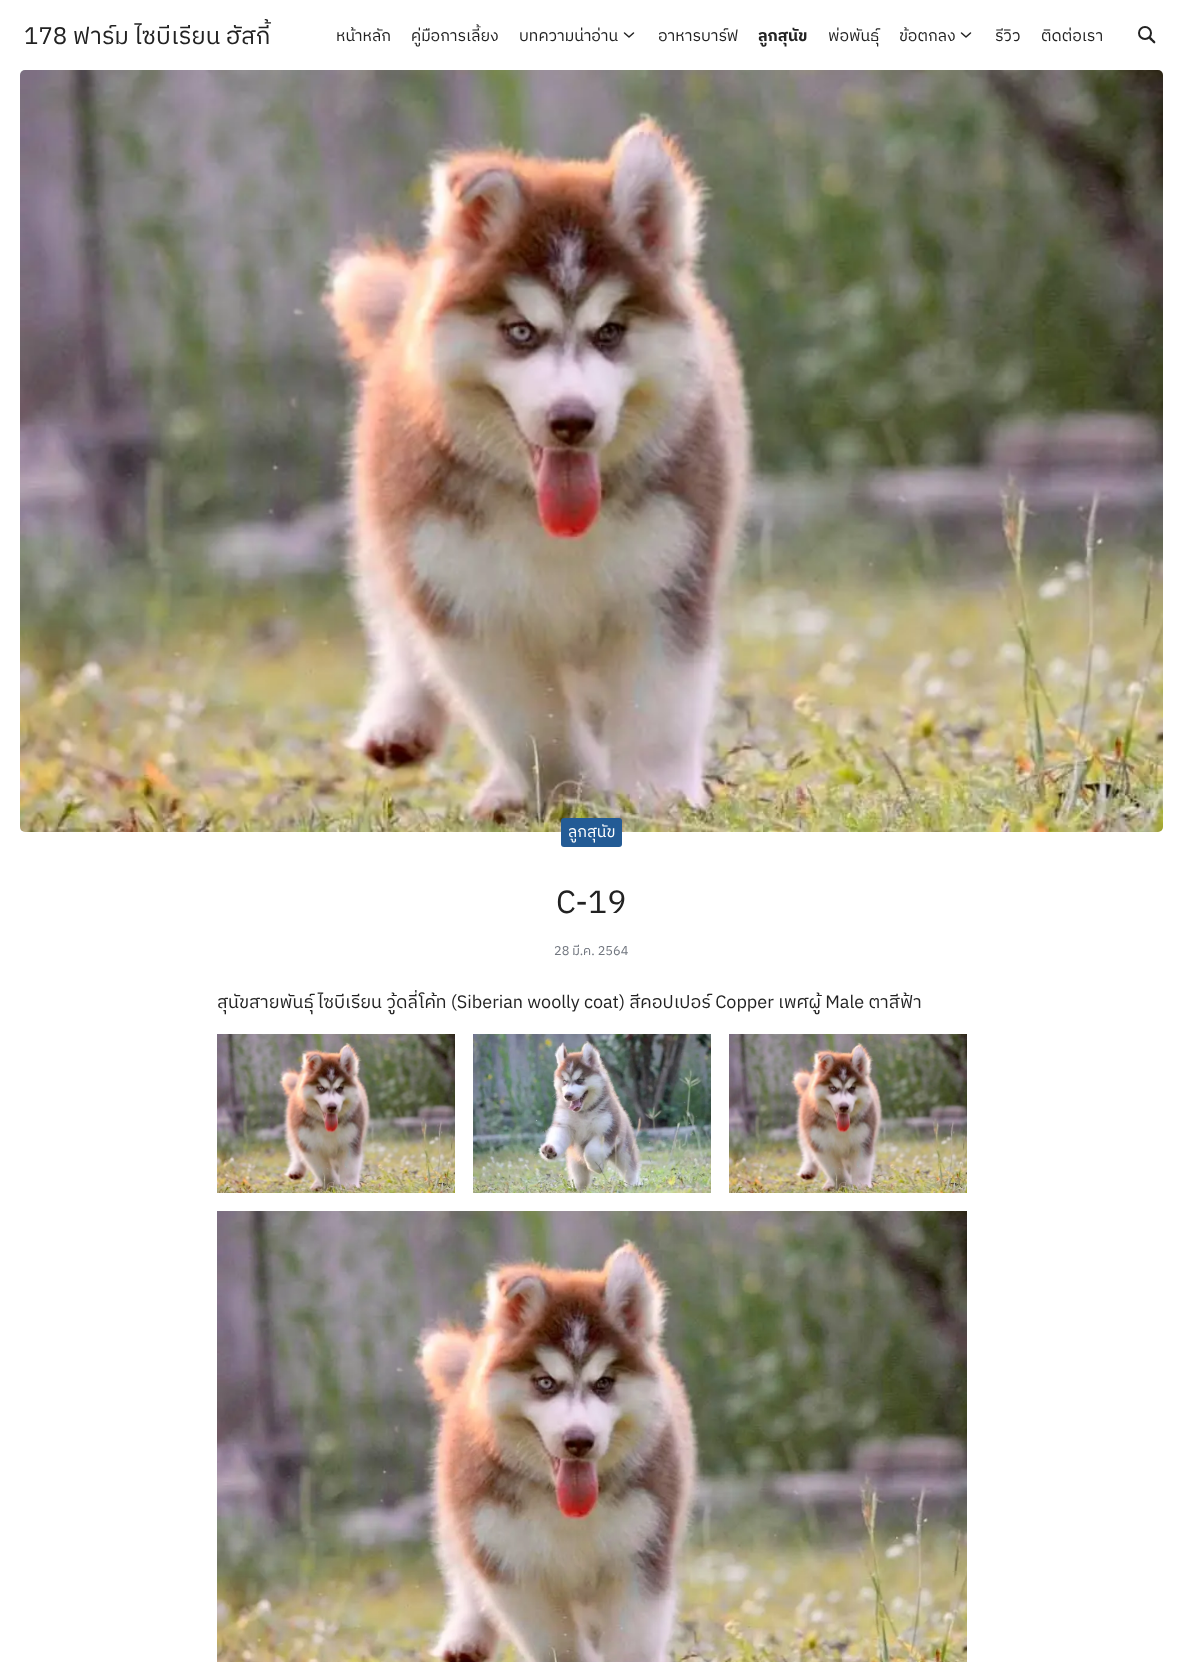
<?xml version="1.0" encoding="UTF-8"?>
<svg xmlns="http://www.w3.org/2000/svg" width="1183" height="1662">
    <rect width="100%" height="100%" fill="#FFFFFF"/>
    <text x="24" y="44" font-family="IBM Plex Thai" font-size="24" fill="#222222">178 ฟาร์ม ไซบีเรียน ฮัสกี้</text>
    <text x="336" y="41" font-family="IBM Plex Thai" font-size="16" fill="#222222">หน้าหลัก</text>
    <text x="411" y="41" font-family="IBM Plex Thai" font-size="16" fill="#222222">คู่มือการเลี้ยง</text>
    <text x="519" y="41" font-family="IBM Plex Thai" font-size="16" fill="#222222">บทความน่าอ่าน</text>
    <path d="M 624.5 33 L 629 37 L 633.5 33" fill="none" stroke="#222222" stroke-width="1.5" stroke-linecap="round" stroke-linejoin="round"/>
    <text x="658" y="41" font-family="IBM Plex Thai" font-size="16" fill="#222222">อาหารบาร์ฟ</text>
    <text x="758" y="41" font-family="IBM Plex Thai" font-size="16" font-weight="700" fill="#222222">ลูกสุนัข</text>
    <text x="828" y="41" font-family="IBM Plex Thai" font-size="16" fill="#222222">พ่อพันธุ์</text>
    <text x="899" y="41" font-family="IBM Plex Thai" font-size="16" fill="#222222">ข้อตกลง</text>
    <path d="M 961.5 33 L 966 37 L 970.5 33" fill="none" stroke="#222222" stroke-width="1.5" stroke-linecap="round" stroke-linejoin="round"/>
    <text x="995" y="41" font-family="IBM Plex Thai" font-size="16" fill="#222222">รีวิว</text>
    <text x="1041" y="41" font-family="IBM Plex Thai" font-size="16" fill="#222222">ติดต่อเรา</text>
    <path d="M 1149.5 37.5 C 1150.5 36 1152.5 39 1153 39.5 C 1153.5 40 1156.5 42 1155 43 C 1154 44.5 1152 41.5 1151.5 41 C 1151 40.5 1148 38.5 1149.5 37.5 Z" fill="#222222"/>
    <circle cx="1145" cy="33" r="6" fill="none" stroke="#222222" stroke-width="2"/>
    <image x="20" y="70" width="1143" height="762" href="img_01.png"/>
    <rect x="561" y="818" width="61" height="29" rx="3" fill="#235B95"/>
    <text x="568" y="837" font-family="IBM Plex Thai" font-size="16" fill="#FFFFFF">ลูกสุนัข</text>
    <text x="556" y="913" font-family="IBM Plex Thai" font-size="32" fill="#222222">C-19</text>
    <text x="554" y="955" font-family="IBM Plex Thai" font-size="12.75" fill="#71767F">28 มี.ค. 2564</text>
    <text x="217" y="1008" font-family="IBM Plex Thai" font-size="18" fill="#222222">สุนัขสายพันธุ์ ไซบีเรียน วู้ดลี่โค้ท (Siberian woolly coat) สีคอปเปอร์ Copper เพศผู้ Male ตาสีฟ้า</text>
    <image x="217" y="1034" width="238" height="159" href="img_02.png"/>
    <image x="473" y="1034" width="238" height="159" href="img_03.png"/>
    <image x="729" y="1034" width="238" height="159" href="img_04.png"/>
    <image x="217" y="1211" width="750" height="451" href="img_05.png"/>
</svg>
